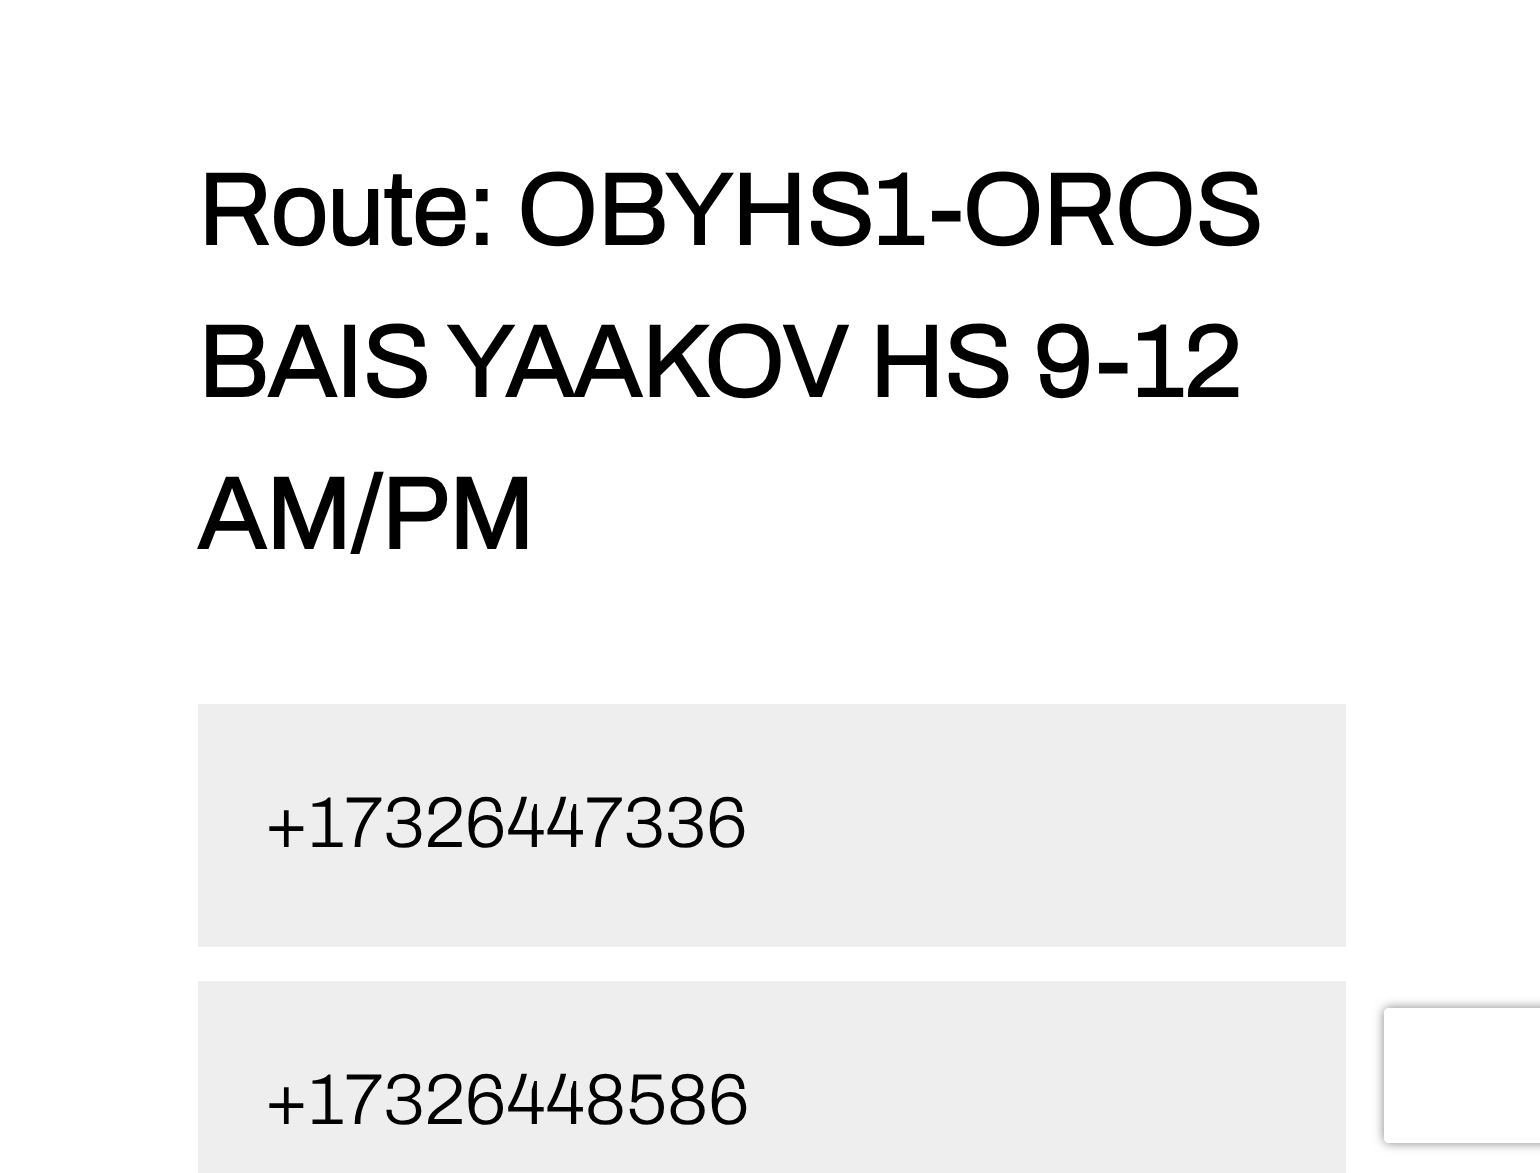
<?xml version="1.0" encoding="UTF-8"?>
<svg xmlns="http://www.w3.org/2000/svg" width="1540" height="1173">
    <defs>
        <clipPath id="clip1"><path d="M 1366 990 H 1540 V 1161 H 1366 Z M 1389 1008 H 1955 C 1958 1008 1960 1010 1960 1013 V 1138 C 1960 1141 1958 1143 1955 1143 H 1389 C 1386 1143 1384 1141 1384 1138 V 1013 C 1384 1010 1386 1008 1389 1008 Z" clip-rule="evenodd"/></clipPath>
        <filter id="blur1" x="-50%" y="-200%" width="200%" height="500%"><feGaussianBlur stdDeviation="5.5"/></filter>
    </defs>
    <rect width="100%" height="100%" fill="#FFFFFF"/>
    <text font-family="Archivo" font-size="101.25" font-weight="700" fill="#000000">
        <tspan x="197" y="245">Route: OBYHS1-OROS</tspan>
        <tspan x="197" y="397">BAIS YAAKOV HS 9-12</tspan>
        <tspan x="197" y="549">AM/PM</tspan>
    </text>
    <rect x="198" y="704" width="1148" height="243" fill="#EEEEEE"/>
    <text x="264" y="847" font-family="Archivo" font-size="72" font-weight="300" fill="#000000">+17326447336</text>
    <rect x="198" y="981" width="1148" height="192" fill="#EEEEEE"/>
    <text x="264" y="1124" font-family="Archivo" font-size="72" font-weight="300" fill="#000000">+17326448586</text>
    <g clip-path="url(#clip1)">
        <rect x="1384" y="1008" width="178" height="135" rx="5" fill="#808080" filter="url(#blur1)"/>
    </g>
</svg>
